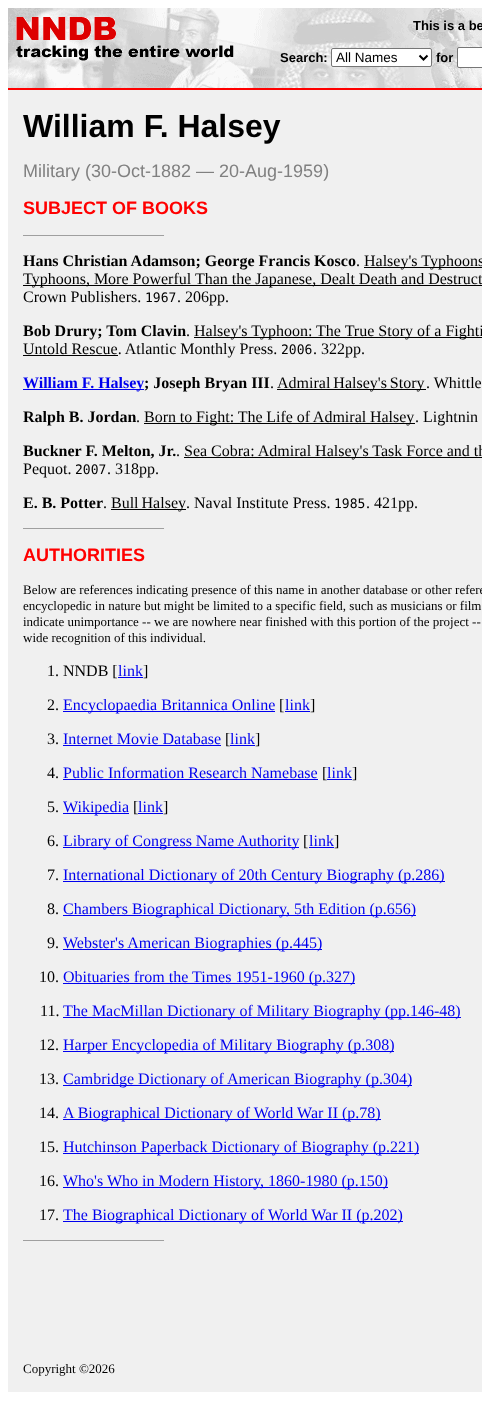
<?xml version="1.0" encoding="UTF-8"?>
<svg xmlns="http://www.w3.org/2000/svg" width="482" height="1406">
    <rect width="100%" height="100%" fill="#FFFFFF"/>
    <image x="8" y="8" width="474" height="80" href="img_01.png"/>
    <image x="16" y="17" width="218" height="44" href="img_02.png"/>
    <text x="413" y="30" font-family="Liberation Sans" font-size="13" font-weight="700" fill="#000000">This is a be</text>
    <text x="280" y="62" font-family="Liberation Sans" font-size="13" font-weight="700" fill="#000000">Search:</text>
    <rect x="331.5" y="48.5" width="100" height="18" rx="1.5" fill="#FFFFFF" stroke="#767676"/>
    <path d="M 419.5 55.5 L 423.5 59.5 L 427.5 55.5" fill="none" stroke="#000000" stroke-width="2"/>
    <text x="336" y="62" font-family="Liberation Sans" font-size="13.5" fill="#000000">All Names</text>
    <text x="436" y="62" font-family="Liberation Sans" font-size="13" font-weight="700" fill="#000000">for</text>
    <rect x="457.5" y="47.5" width="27" height="20" rx="1.5" fill="#FFFFFF" stroke="#767676"/>
    <rect x="8" y="88" width="474" height="2" fill="#FF0000"/>
    <rect x="8" y="90" width="474" height="1302" fill="#F0F0F0"/>
    <text x="23" y="137" font-family="Liberation Sans" font-size="32" font-weight="700" fill="#000000">William F. Halsey</text>
    <text x="23" y="177" font-family="Liberation Sans" font-size="18" fill="#808080">Military (30-Oct-1882 — 20-Aug-1959)</text>
    <text x="23" y="214" font-family="Liberation Sans" font-size="18" font-weight="700" fill="#FF0000">SUBJECT OF BOOKS</text>
    <rect x="23" y="235" width="142" height="1" fill="#9F9F9F"/>
    <rect x="164" y="235" width="1" height="1" fill="#EEEEEE"/>
    <text x="23" y="266" font-family="Liberation Serif" font-size="16" font-weight="700" fill="#000000">Hans Christian Adamson; George Francis Kosco</text>
    <text x="356" y="266" font-family="Liberation Serif" font-size="16" fill="#000000">.</text>
    <rect x="364" y="267" width="118" height="1" fill="#000000"/>
    <text x="364" y="266" font-family="Liberation Serif" font-size="16" fill="#000000">Halsey's Typhoons</text>
    <rect x="23" y="285" width="459" height="1" fill="#000000"/>
    <text font-family="Liberation Serif" font-size="16" fill="#000000">
        <tspan x="23" y="284">Typhoons, More Powerful Than the Japanese, Dealt Death and Destruct</tspan>
        <tspan x="23" y="302">Crown Publishers.</tspan>
    </text>
    <text x="145" y="302" font-family="DejaVu Sans Mono" font-size="13" fill="#000000">1967</text>
    <text x="177" y="302" font-family="Liberation Serif" font-size="16" fill="#000000">. 206pp.</text>
    <text x="23" y="336" font-family="Liberation Serif" font-size="16" font-weight="700" fill="#000000">Bob Drury; Tom Clavin</text>
    <text x="186" y="336" font-family="Liberation Serif" font-size="16" fill="#000000">.</text>
    <rect x="194" y="337" width="288" height="1" fill="#000000"/>
    <text x="194" y="336" font-family="Liberation Serif" font-size="16" fill="#000000">Halsey's Typhoon: The True Story of a Fighti</text>
    <rect x="23" y="355" width="95" height="1" fill="#000000"/>
    <text x="23" y="354" font-family="Liberation Serif" font-size="16" fill="#000000">Untold Rescue. Atlantic Monthly Press.</text>
    <text x="281" y="354" font-family="DejaVu Sans Mono" font-size="13" fill="#000000">2006</text>
    <text x="313" y="354" font-family="Liberation Serif" font-size="16" fill="#000000">. 322pp.</text>
    <rect x="23" y="389" width="121" height="1" fill="#0000EE"/>
    <text x="23" y="388" font-family="Liberation Serif" font-size="16" font-weight="700" fill="#0000EE">William F. Halsey</text>
    <text x="144" y="388" font-family="Liberation Serif" font-size="16" font-weight="700" fill="#000000">; Joseph Bryan III</text>
    <text x="270" y="388" font-family="Liberation Serif" font-size="16" fill="#000000">.</text>
    <rect x="277" y="389" width="149" height="1" fill="#000000"/>
    <text x="277" y="388" word-spacing="-1" font-family="Liberation Serif" font-size="16" fill="#000000">Admiral Halsey's Story</text>
    <text x="426" y="388" font-family="Liberation Serif" font-size="16" fill="#000000">. Whittle</text>
    <text x="23" y="422" font-family="Liberation Serif" font-size="16" font-weight="700" fill="#000000">Ralph B. Jordan</text>
    <text x="136" y="422" font-family="Liberation Serif" font-size="16" fill="#000000">.</text>
    <rect x="144" y="423" width="271" height="1" fill="#000000"/>
    <text x="144" y="422" word-spacing="-0.25" font-family="Liberation Serif" font-size="16" fill="#000000">Born to Fight: The Life of Admiral Halsey</text>
    <text x="415" y="422" font-family="Liberation Serif" font-size="16" fill="#000000">. Lightnin</text>
    <text x="23" y="456" font-family="Liberation Serif" font-size="16" font-weight="700" fill="#000000">Buckner F. Melton, Jr.</text>
    <text x="176" y="456" font-family="Liberation Serif" font-size="16" fill="#000000">.</text>
    <rect x="184" y="457" width="298" height="1" fill="#000000"/>
    <text x="184" y="456" font-family="Liberation Serif" font-size="16" fill="#000000">Sea Cobra: Admiral Halsey's Task Force and th</text>
    <text x="23" y="474" font-family="Liberation Serif" font-size="16" fill="#000000">Pequot.</text>
    <text x="75" y="474" font-family="DejaVu Sans Mono" font-size="13" fill="#000000">2007</text>
    <text x="107" y="474" font-family="Liberation Serif" font-size="16" fill="#000000">. 318pp.</text>
    <text x="23" y="508" font-family="Liberation Serif" font-size="16" font-weight="700" fill="#000000">E. B. Potter</text>
    <text x="103" y="508" font-family="Liberation Serif" font-size="16" fill="#000000">.</text>
    <rect x="111" y="509" width="75" height="1" fill="#000000"/>
    <text x="111" y="508" word-spacing="-1" font-family="Liberation Serif" font-size="16" fill="#000000">Bull Halsey</text>
    <text x="186" y="508" font-family="Liberation Serif" font-size="16" fill="#000000">. Naval Institute Press.</text>
    <text x="334" y="508" font-family="DejaVu Sans Mono" font-size="13" fill="#000000">1985</text>
    <text x="366" y="508" font-family="Liberation Serif" font-size="16" fill="#000000">. 421pp.</text>
    <rect x="23" y="528" width="142" height="1" fill="#9F9F9F"/>
    <rect x="164" y="528" width="1" height="1" fill="#EEEEEE"/>
    <text x="23" y="561" font-family="Liberation Sans" font-size="18" font-weight="700" fill="#FF0000">AUTHORITIES</text>
    <text font-family="Liberation Serif" font-size="13" fill="#000000">
        <tspan x="23" y="594">Below are references indicating presence of this name in another database or other refere</tspan>
        <tspan x="23" y="610">encyclopedic in nature but might be limited to a specific field, such as musicians or film</tspan>
        <tspan x="23" y="626">indicate unimportance -- we are nowhere near finished with this portion of the project --</tspan>
        <tspan x="23" y="642">wide recognition of this individual.</tspan>
    </text>
    <text x="47" y="676" font-family="Liberation Serif" font-size="16" fill="#000000">1. NNDB [</text>
    <text x="118" y="676" font-family="Liberation Serif" font-size="16" fill="#0000EE">link</text>
    <rect x="118" y="677" width="25" height="1" fill="#0000EE"/>
    <text x="143" y="676" font-family="Liberation Serif" font-size="16" fill="#000000">]</text>
    <text x="47" y="710" font-family="Liberation Serif" font-size="16" fill="#000000">2.</text>
    <rect x="63" y="711" width="212" height="1" fill="#0000EE"/>
    <text x="63" y="710" font-family="Liberation Serif" font-size="16" fill="#0000EE">Encyclopaedia Britannica Online</text>
    <text x="279" y="710" font-family="Liberation Serif" font-size="16" fill="#000000">[</text>
    <text x="285" y="710" font-family="Liberation Serif" font-size="16" fill="#0000EE">link</text>
    <rect x="285" y="711" width="25" height="1" fill="#0000EE"/>
    <text x="310" y="710" font-family="Liberation Serif" font-size="16" fill="#000000">]</text>
    <text x="47" y="744" font-family="Liberation Serif" font-size="16" fill="#000000">3.</text>
    <text x="63" y="744" font-family="Liberation Serif" font-size="16" fill="#0000EE">Internet Movie Database</text>
    <rect x="63" y="745" width="158" height="1" fill="#0000EE"/>
    <text x="225" y="744" font-family="Liberation Serif" font-size="16" fill="#000000">[</text>
    <text x="230" y="744" font-family="Liberation Serif" font-size="16" fill="#0000EE">link</text>
    <rect x="230" y="745" width="25" height="1" fill="#0000EE"/>
    <text x="255" y="744" font-family="Liberation Serif" font-size="16" fill="#000000">]</text>
    <text x="47" y="778" font-family="Liberation Serif" font-size="16" fill="#000000">4.</text>
    <text x="63" y="778" font-family="Liberation Serif" font-size="16" fill="#0000EE">Public Information Research Namebase</text>
    <rect x="63" y="779" width="255" height="1" fill="#0000EE"/>
    <text x="322" y="778" font-family="Liberation Serif" font-size="16" fill="#000000">[</text>
    <text x="327" y="778" font-family="Liberation Serif" font-size="16" fill="#0000EE">link</text>
    <rect x="327" y="779" width="25" height="1" fill="#0000EE"/>
    <text x="352" y="778" font-family="Liberation Serif" font-size="16" fill="#000000">]</text>
    <text x="47" y="812" font-family="Liberation Serif" font-size="16" fill="#000000">5.</text>
    <rect x="63" y="813" width="66" height="1" fill="#0000EE"/>
    <text x="63" y="812" font-family="Liberation Serif" font-size="16" fill="#0000EE">Wikipedia</text>
    <text x="133" y="812" font-family="Liberation Serif" font-size="16" fill="#000000">[</text>
    <text x="138" y="812" font-family="Liberation Serif" font-size="16" fill="#0000EE">link</text>
    <rect x="138" y="813" width="25" height="1" fill="#0000EE"/>
    <text x="163" y="812" font-family="Liberation Serif" font-size="16" fill="#000000">]</text>
    <text x="47" y="846" font-family="Liberation Serif" font-size="16" fill="#000000">6.</text>
    <rect x="63" y="847" width="236" height="1" fill="#0000EE"/>
    <text x="63" y="846" font-family="Liberation Serif" font-size="16" fill="#0000EE">Library of Congress Name Authority</text>
    <text x="303" y="846" font-family="Liberation Serif" font-size="16" fill="#000000">[</text>
    <text x="309" y="846" font-family="Liberation Serif" font-size="16" fill="#0000EE">link</text>
    <rect x="309" y="847" width="25" height="1" fill="#0000EE"/>
    <text x="334" y="846" font-family="Liberation Serif" font-size="16" fill="#000000">]</text>
    <text x="47" y="880" font-family="Liberation Serif" font-size="16" fill="#000000">7.</text>
    <rect x="63" y="881" width="382" height="1" fill="#0000EE"/>
    <text x="63" y="880" font-family="Liberation Serif" font-size="16" fill="#0000EE">International Dictionary of 20th Century Biography (p.286)</text>
    <text x="47" y="914" font-family="Liberation Serif" font-size="16" fill="#000000">8.</text>
    <rect x="63" y="915" width="353" height="1" fill="#0000EE"/>
    <text x="63" y="914" font-family="Liberation Serif" font-size="16" fill="#0000EE">Chambers Biographical Dictionary, 5th Edition (p.656)</text>
    <text x="47" y="948" font-family="Liberation Serif" font-size="16" fill="#000000">9.</text>
    <rect x="63" y="949" width="259" height="1" fill="#0000EE"/>
    <text x="63" y="948" font-family="Liberation Serif" font-size="16" fill="#0000EE">Webster's American Biographies (p.445)</text>
    <text x="39" y="982" font-family="Liberation Serif" font-size="16" fill="#000000">10.</text>
    <rect x="63" y="983" width="292" height="1" fill="#0000EE"/>
    <text x="63" y="982" font-family="Liberation Serif" font-size="16" fill="#0000EE">Obituaries from the Times 1951-1960 (p.327)</text>
    <text x="40" y="1016" font-family="Liberation Serif" font-size="16" fill="#000000">11.</text>
    <rect x="63" y="1017" width="398" height="1" fill="#0000EE"/>
    <text x="63" y="1016" font-family="Liberation Serif" font-size="16" fill="#0000EE">The MacMillan Dictionary of Military Biography (pp.146-48)</text>
    <text x="39" y="1050" font-family="Liberation Serif" font-size="16" fill="#000000">12.</text>
    <rect x="63" y="1051" width="331" height="1" fill="#0000EE"/>
    <text x="63" y="1050" font-family="Liberation Serif" font-size="16" fill="#0000EE">Harper Encyclopedia of Military Biography (p.308)</text>
    <text x="39" y="1084" font-family="Liberation Serif" font-size="16" fill="#000000">13.</text>
    <rect x="63" y="1085" width="349" height="1" fill="#0000EE"/>
    <text x="63" y="1084" font-family="Liberation Serif" font-size="16" fill="#0000EE">Cambridge Dictionary of American Biography (p.304)</text>
    <text x="39" y="1118" font-family="Liberation Serif" font-size="16" fill="#000000">14.</text>
    <rect x="63" y="1119" width="318" height="1" fill="#0000EE"/>
    <text x="63" y="1118" font-family="Liberation Serif" font-size="16" fill="#0000EE">A Biographical Dictionary of World War II (p.78)</text>
    <text x="39" y="1152" font-family="Liberation Serif" font-size="16" fill="#000000">15.</text>
    <rect x="63" y="1153" width="356" height="1" fill="#0000EE"/>
    <text x="63" y="1152" font-family="Liberation Serif" font-size="16" fill="#0000EE">Hutchinson Paperback Dictionary of Biography (p.221)</text>
    <text x="39" y="1186" font-family="Liberation Serif" font-size="16" fill="#000000">16.</text>
    <rect x="63" y="1187" width="325" height="1" fill="#0000EE"/>
    <text x="63" y="1186" font-family="Liberation Serif" font-size="16" fill="#0000EE">Who's Who in Modern History, 1860-1980 (p.150)</text>
    <text x="39" y="1220" font-family="Liberation Serif" font-size="16" fill="#000000">17.</text>
    <rect x="63" y="1221" width="340" height="1" fill="#0000EE"/>
    <text x="63" y="1220" font-family="Liberation Serif" font-size="16" fill="#0000EE">The Biographical Dictionary of World War II (p.202)</text>
    <rect x="23" y="1240" width="142" height="1" fill="#9F9F9F"/>
    <rect x="164" y="1240" width="1" height="1" fill="#EEEEEE"/>
    <text x="23" y="1373" font-family="Liberation Serif" font-size="13" fill="#000000">Copyright ©2026</text>
</svg>
